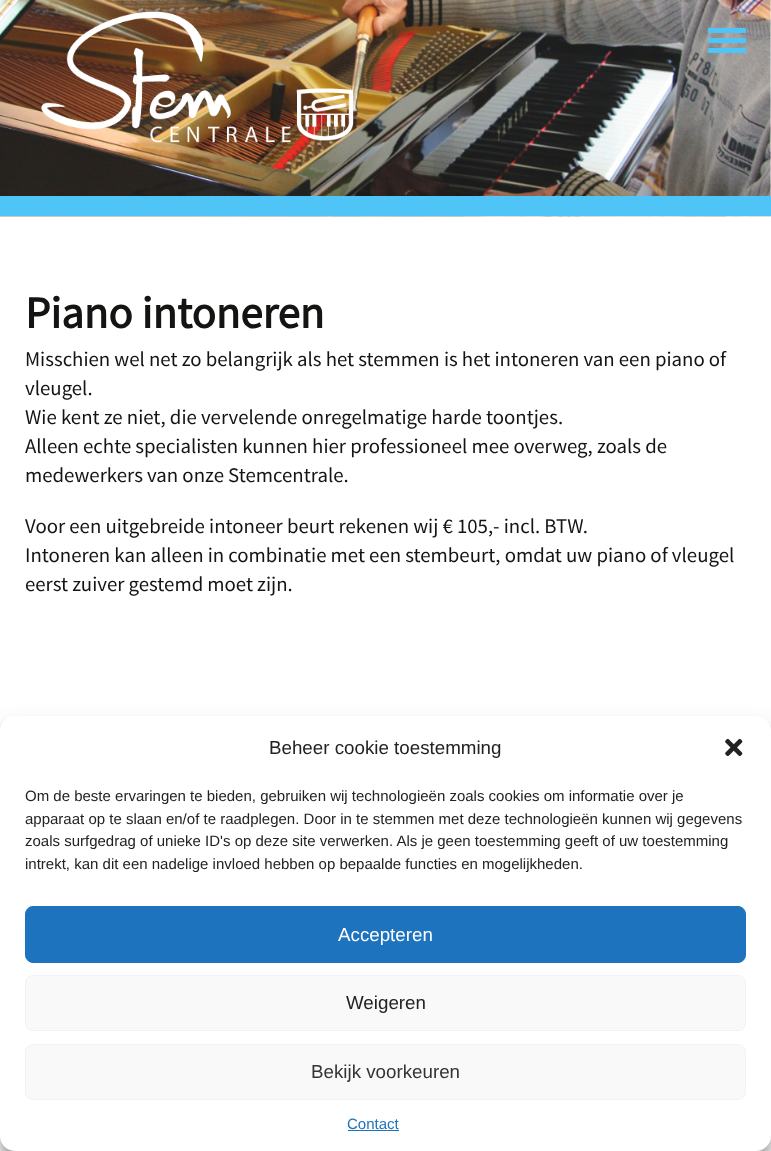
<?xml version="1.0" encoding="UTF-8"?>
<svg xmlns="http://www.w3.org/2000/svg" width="771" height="1151">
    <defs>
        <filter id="blur1" x="-50%" y="-200%" width="200%" height="500%"><feGaussianBlur stdDeviation="4"/></filter>
        <filter id="blur2" x="-50%" y="-200%" width="200%" height="500%"><feGaussianBlur stdDeviation="12.5"/></filter>
    </defs>
    <rect width="100%" height="100%" fill="#FFFFFF"/>
    <image x="0" y="0" width="771" height="217" href="img_01.png"/>
    <rect x="0" y="196" width="771" height="20" fill="#4FC4F7"/>
    <image x="41" y="11" width="313" height="132" href="img_02.png"/>
    <rect x="708" y="28" width="38" height="5" fill="#4FC4F7"/>
    <rect x="708" y="38" width="38" height="5" fill="#4FC4F7"/>
    <rect x="708" y="48" width="38" height="5" fill="#4FC4F7"/>
    <text x="25" y="328" font-family="Source Sans Pro" font-size="44.75" font-weight="700" fill="#141412">Piano intoneren</text>
    <text font-family="Source Sans Pro" font-size="20.8" fill="#141412">
        <tspan x="25" y="366">Misschien wel net zo belangrijk als het stemmen is het intoneren van een piano of</tspan>
        <tspan x="25" y="395">vleugel.</tspan>
        <tspan x="25" y="424">Wie kent ze niet, die vervelende onregelmatige harde toontjes.</tspan>
        <tspan x="25" y="453">Alleen echte specialisten kunnen hier professioneel mee overweg, zoals de</tspan>
        <tspan x="25" y="482">medewerkers van onze Stemcentrale.</tspan>
    </text>
    <text font-family="Source Sans Pro" font-size="20.8" fill="#141412">
        <tspan x="25" y="533">Voor een uitgebreide intoneer beurt rekenen wij € 105,- incl. BTW.</tspan>
        <tspan x="25" y="562">Intoneren kan alleen in combinatie met een stembeurt, omdat uw piano of vleugel</tspan>
        <tspan x="25" y="591">eerst zuiver gestemd moet zijn.</tspan>
    </text>
    <rect x="0" y="724" width="771" height="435" rx="15" fill="#000000" fill-opacity="0.23" filter="url(#blur1)"/>
    <rect x="0" y="729" width="771" height="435" rx="15" fill="#000000" fill-opacity="0.19" filter="url(#blur2)"/>
    <rect x="0" y="716" width="771" height="435" rx="15" fill="#FFFFFF"/>
    <text x="269" y="754" font-family="Liberation Sans" font-size="18.75" fill="#222222">Beheer cookie toestemming</text>
    <image x="725" y="738" width="18" height="19" href="img_03.png"/>
    <text font-family="Liberation Sans" font-size="15" fill="#222222">
        <tspan x="25" y="801">Om de beste ervaringen te bieden, gebruiken wij technologieën zoals cookies om informatie over je</tspan>
        <tspan x="25" y="824">apparaat op te slaan en/of te raadplegen. Door in te stemmen met deze technologieën kunnen wij gegevens</tspan>
        <tspan x="25" y="846">zoals surfgedrag of unieke ID's op deze site verwerken. Als je geen toestemming geeft of uw toestemming</tspan>
        <tspan x="25" y="869">intrekt, kan dit een nadelige invloed hebben op bepaalde functies en mogelijkheden.</tspan>
    </text>
    <rect x="25.5" y="906.5" width="720" height="56" rx="7.5" fill="#1E73BE" stroke="#1E73BE"/>
    <text x="338" y="941" font-family="Liberation Sans" font-size="18.75" fill="#FFFFFF">Accepteren</text>
    <rect x="25.5" y="975.5" width="720" height="55" rx="7.5" fill="#F9F9F9" stroke="#F2F2F2"/>
    <text x="346" y="1009" font-family="Liberation Sans" font-size="18.75" fill="#222222">Weigeren</text>
    <rect x="25.5" y="1044.5" width="720" height="55" rx="7.5" fill="#F9F9F9" stroke="#F2F2F2"/>
    <text x="311" y="1078" font-family="Liberation Sans" font-size="18.75" fill="#333333">Bekijk voorkeuren</text>
    <text x="347" y="1129" font-family="Liberation Sans" font-size="15" fill="#1E73BE">Contact</text>
    <rect x="348" y="1130" width="51" height="1" fill="#1E73BE"/>
</svg>
